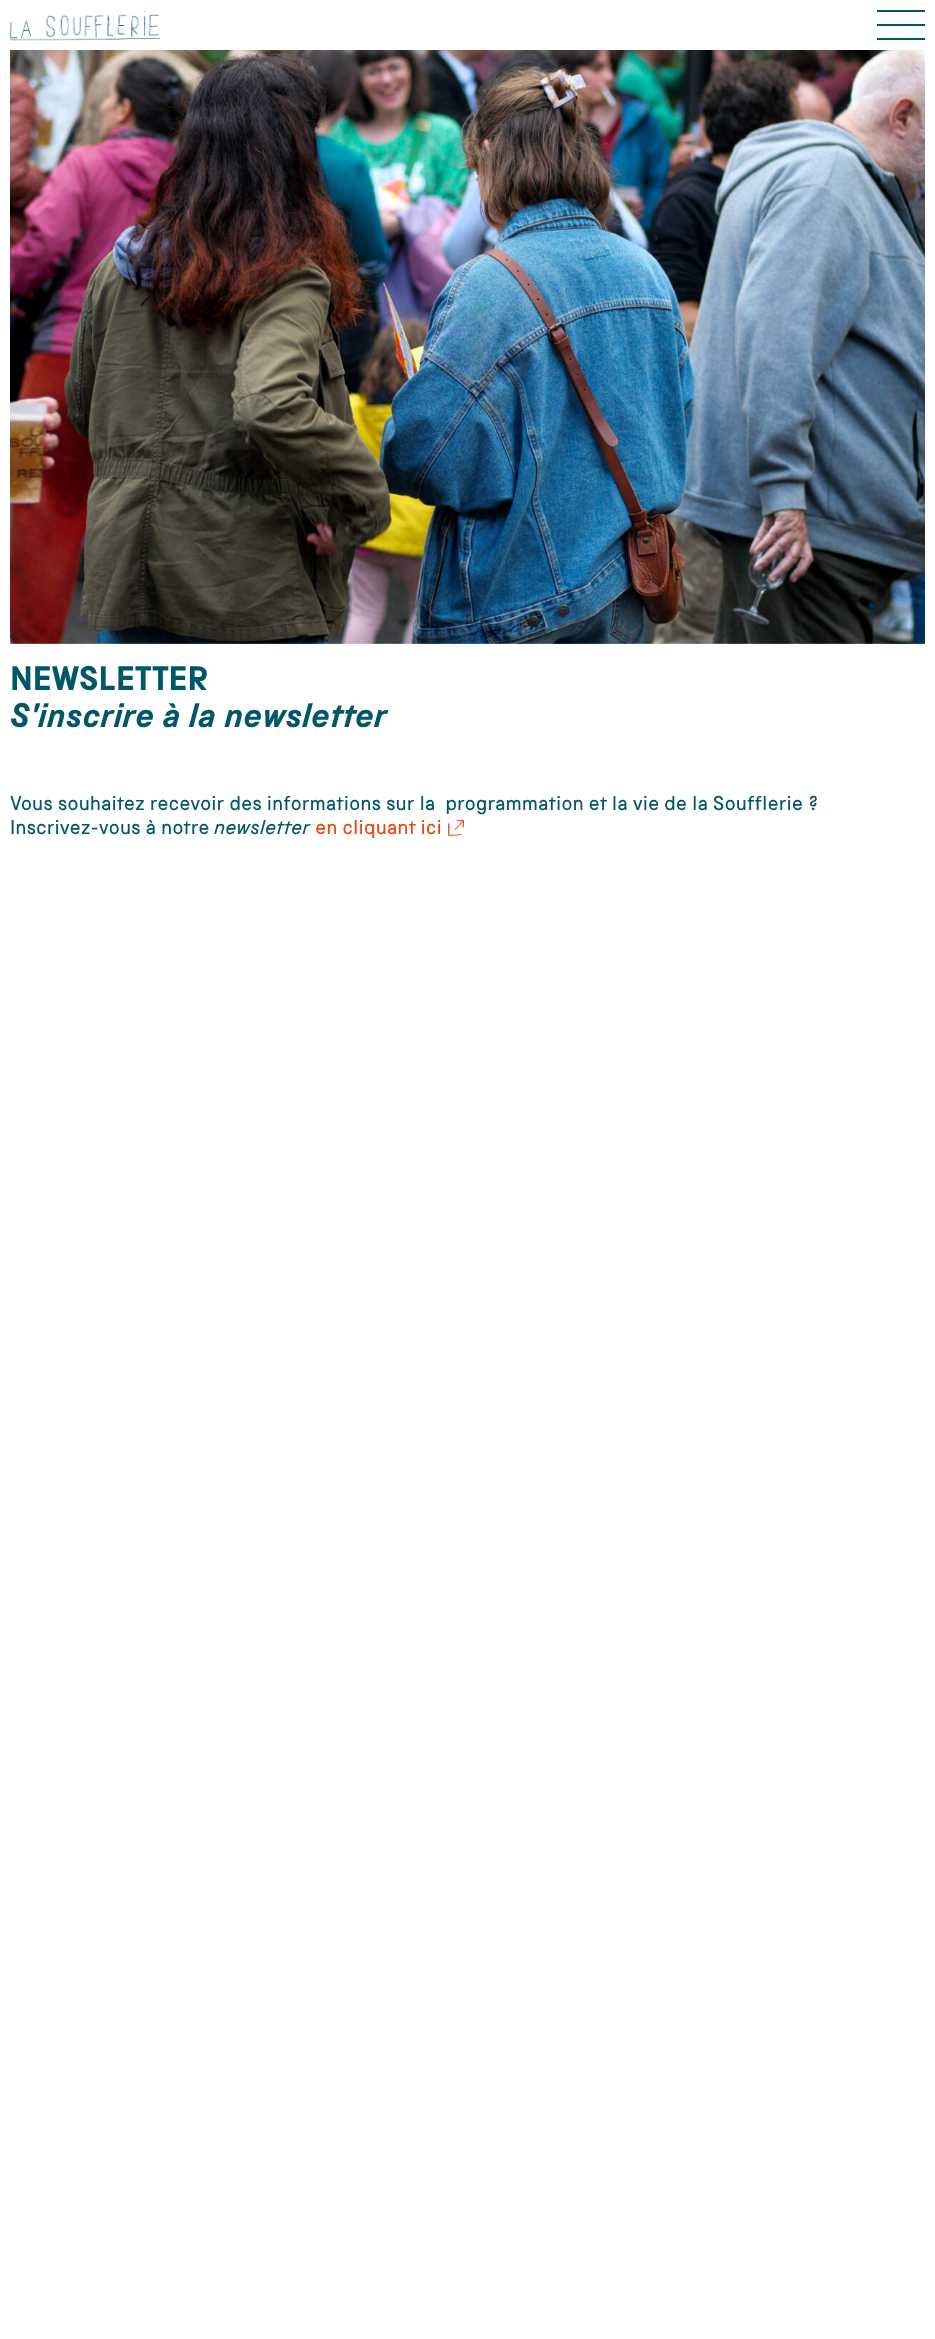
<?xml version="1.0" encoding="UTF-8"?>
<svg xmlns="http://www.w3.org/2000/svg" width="935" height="2339">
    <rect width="100%" height="100%" fill="#FFFFFF"/>
    <image x="10" y="10" width="150" height="31" href="img_01.png"/>
    <rect x="877" y="10" width="48" height="2" fill="#005769"/>
    <rect x="877" y="38" width="48" height="2" fill="#005769"/>
    <rect x="877" y="24" width="48" height="2" fill="#005769"/>
    <image x="10" y="50" width="915" height="594" href="img_02.png"/>
    <text x="10" y="690" font-family="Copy" font-size="34" font-weight="700" fill="#005769">NEWSLETTER</text>
    <text x="10" y="727" font-family="Copy" font-size="34" font-weight="700" font-style="italic" fill="#005769">S'inscrire à la newsletter</text>
    <text font-family="Copy" font-size="20" fill="#005769" xml:space="preserve"><tspan x="10" y="810">Vous souhaitez recevoir des informations sur la  programmation et la vie de la Soufflerie ?</tspan><tspan x="10" y="834">Inscrivez-vous à notre</tspan></text>
    <text x="214" y="834" font-family="Copy" font-size="20" font-style="italic" fill="#005769">newsletter</text>
    <text x="315" y="834" font-family="Copy" font-size="20" fill="#E84910">en cliquant ici</text>
    <image x="448" y="820" width="16" height="16" href="img_03.png"/>
</svg>
